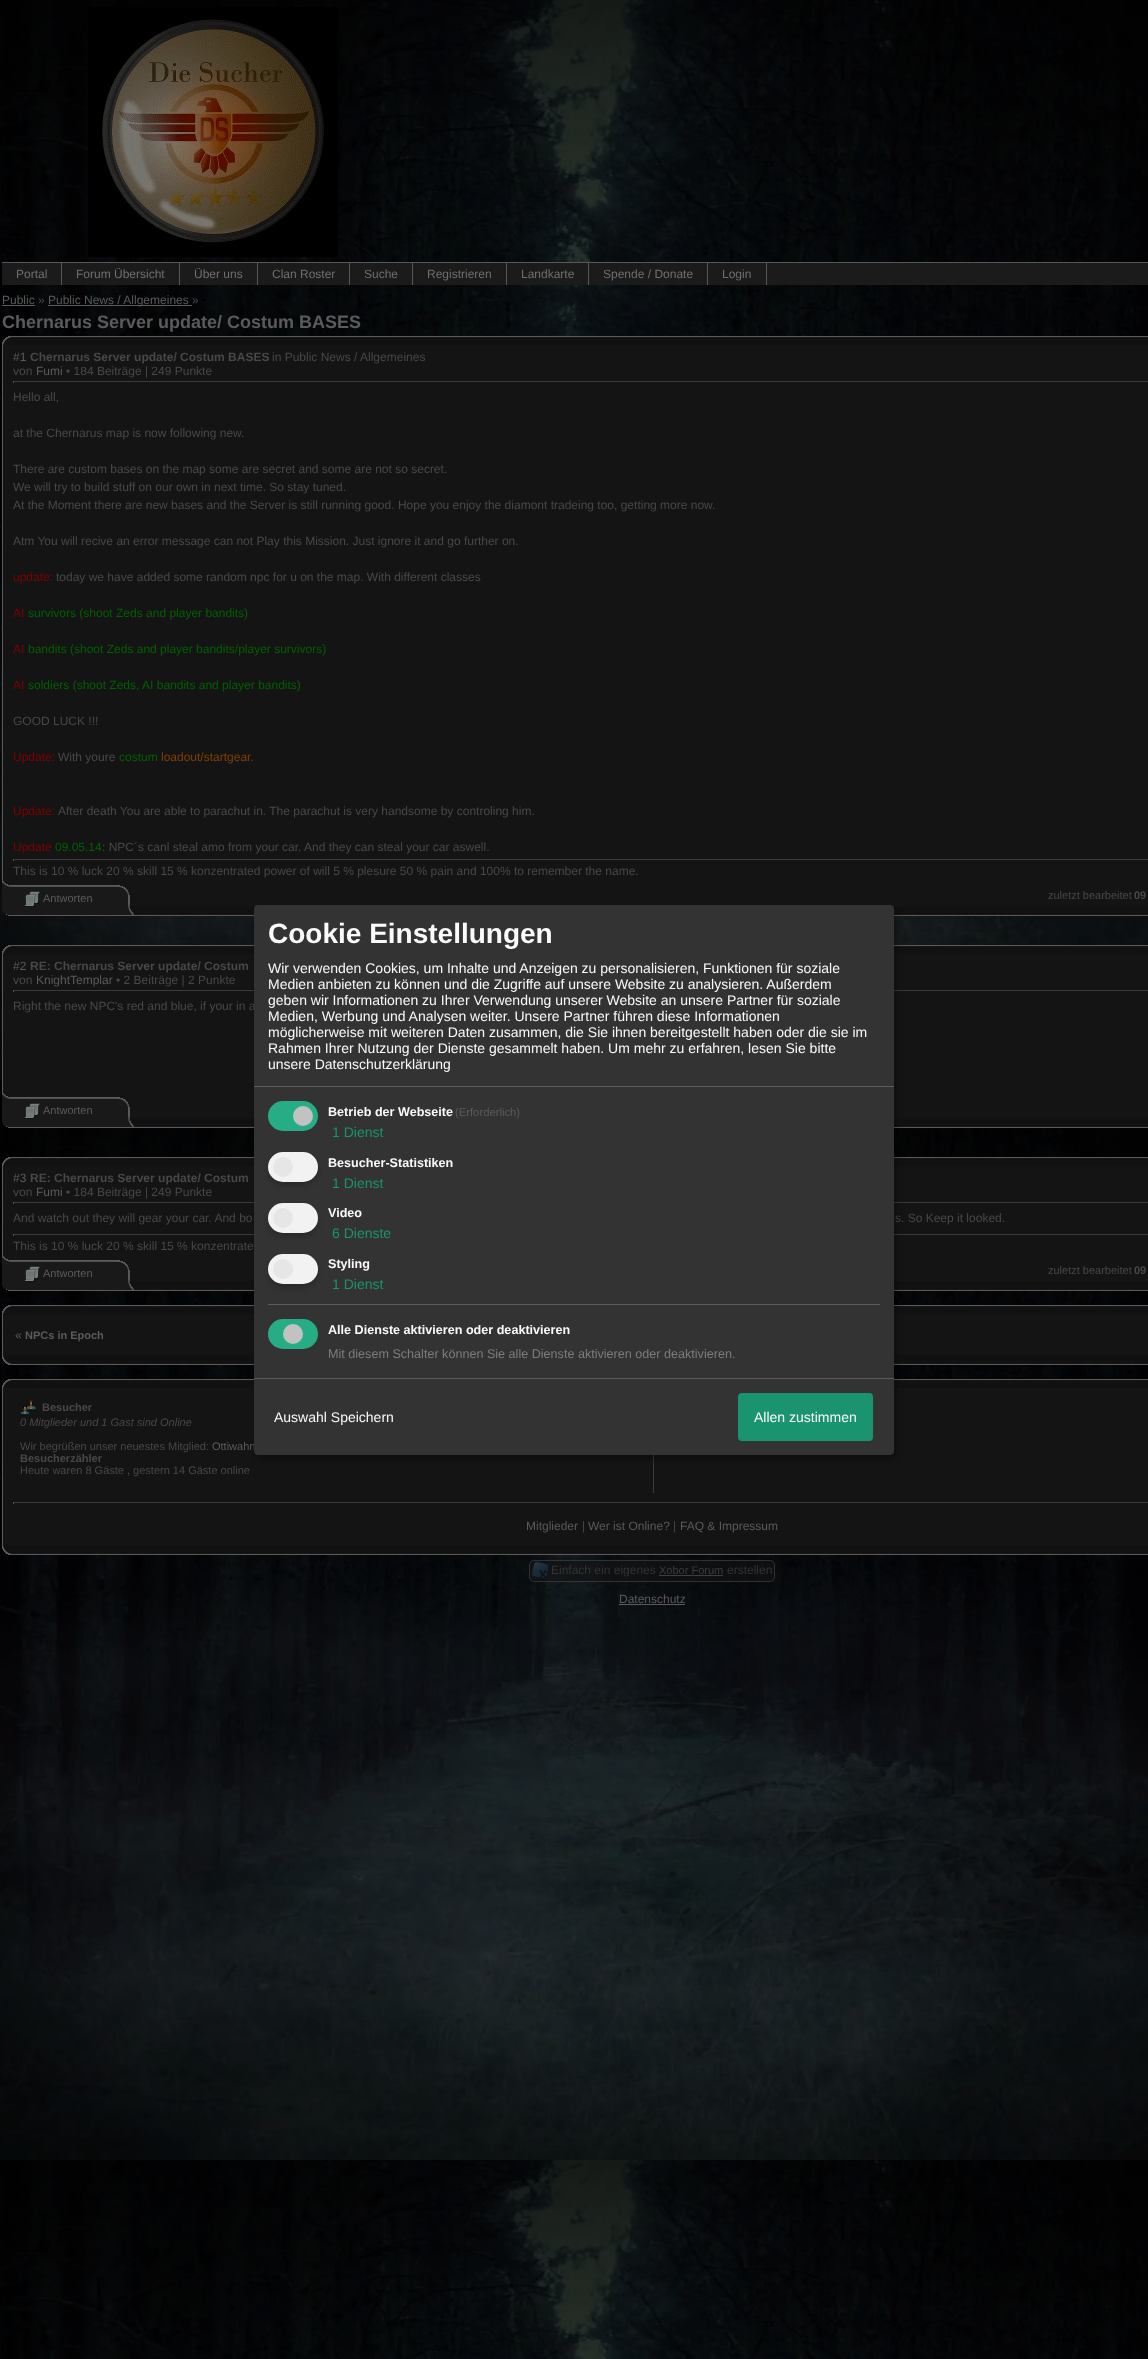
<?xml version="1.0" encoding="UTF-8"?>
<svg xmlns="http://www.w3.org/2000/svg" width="1148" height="2359">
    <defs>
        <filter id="blur1" x="-50%" y="-200%" width="200%" height="500%"><feGaussianBlur stdDeviation="5"/></filter>
        <filter id="blur2" x="-50%" y="-200%" width="200%" height="500%"><feGaussianBlur stdDeviation="3"/></filter>
    </defs>
    <rect width="100%" height="100%" fill="#FFFFFF"/>
    <image x="0" y="0" width="1148" height="2359" href="img_01.png"/>
    <image x="88" y="7" width="250" height="250" href="img_02.png"/>
    <rect x="2" y="263" width="1146" height="22" fill="#1B1B1B"/>
    <rect x="2" y="262" width="1146" height="1" fill="#575757"/>
    <rect x="61" y="263" width="1" height="22" fill="#575757"/>
    <text x="16" y="278" font-family="Liberation Sans" font-size="12" fill="#6F6F6F">Portal</text>
    <rect x="179" y="263" width="1" height="22" fill="#575757"/>
    <text x="76" y="278" font-family="Liberation Sans" font-size="12" fill="#6F6F6F">Forum Übersicht</text>
    <rect x="257" y="263" width="1" height="22" fill="#575757"/>
    <text x="194" y="278" font-family="Liberation Sans" font-size="12" fill="#6F6F6F">Über uns</text>
    <rect x="349" y="263" width="1" height="22" fill="#575757"/>
    <text x="272" y="278" font-family="Liberation Sans" font-size="12" fill="#6F6F6F">Clan Roster</text>
    <rect x="412" y="263" width="1" height="22" fill="#575757"/>
    <text x="364" y="278" font-family="Liberation Sans" font-size="12" fill="#6F6F6F">Suche</text>
    <rect x="506" y="263" width="1" height="22" fill="#575757"/>
    <text x="427" y="278" font-family="Liberation Sans" font-size="12" fill="#6F6F6F">Registrieren</text>
    <rect x="588" y="263" width="1" height="22" fill="#575757"/>
    <text x="521" y="278" font-family="Liberation Sans" font-size="12" fill="#6F6F6F">Landkarte</text>
    <rect x="707" y="263" width="1" height="22" fill="#575757"/>
    <text x="603" y="278" font-family="Liberation Sans" font-size="12" fill="#6F6F6F">Spende / Donate</text>
    <rect x="766" y="263" width="1" height="22" fill="#575757"/>
    <text x="722" y="278" font-family="Liberation Sans" font-size="12" fill="#6F6F6F">Login</text>
    <text x="2" y="304" font-family="Liberation Sans" font-size="12" fill="#5B5B5B">Public</text>
    <rect x="2" y="305" width="33" height="1" fill="#5B5B5B"/>
    <text x="38" y="304" font-family="Liberation Sans" font-size="12" fill="#484848">»</text>
    <rect x="48" y="305" width="144" height="1" fill="#5B5B5B"/>
    <text x="48" y="304" font-family="Liberation Sans" font-size="12" fill="#5B5B5B">Public News / Allgemeines</text>
    <text x="192" y="304" font-family="Liberation Sans" font-size="12" fill="#484848">»</text>
    <text x="2" y="328" font-family="Liberation Sans" font-size="18" font-weight="700" fill="#5B5B5B">Chernarus Server update/ Costum BASES</text>
    <image x="2" y="336" width="1146" height="9" href="img_03.png"/>
    <rect x="3" y="345" width="1145" height="561" fill="#141414"/>
    <rect x="2" y="345" width="1" height="536" fill="#5C5C5C"/>
    <text x="13" y="361" font-family="Liberation Sans" font-size="12" fill="#5B5B5B">#1</text>
    <text x="30" y="361" font-family="Liberation Sans" font-size="12" font-weight="700" fill="#484848">Chernarus Server update/ Costum BASES</text>
    <text x="272" y="361" font-family="Liberation Sans" font-size="12" fill="#484848">in Public News / Allgemeines</text>
    <text x="13" y="375" font-family="Liberation Sans" font-size="12" fill="#484848">von</text>
    <text x="36" y="375" font-family="Liberation Sans" font-size="12" fill="#5B5B5B">Fumi</text>
    <text x="66" y="375" font-family="Liberation Sans" font-size="12" fill="#484848">• 184 Beiträge | 249 Punkte</text>
    <rect x="13" y="381" width="1135" height="1" fill="#3B3B3B"/>
    <rect x="13" y="381" width="1" height="2" fill="#505050"/>
    <text x="13" y="401" font-family="Liberation Sans" font-size="12" fill="#484848">Hello all,</text>
    <text x="13" y="437" font-family="Liberation Sans" font-size="12" fill="#484848">at the Chernarus map is now following new.</text>
    <text font-family="Liberation Sans" font-size="12" fill="#484848">
        <tspan x="13" y="473">There are custom bases on the map some are secret and some are not so secret.</tspan>
        <tspan x="13" y="491">We will try to build stuff on our own in next time. So stay tuned.</tspan>
        <tspan x="13" y="509">At the Moment there are new bases and the Server is still running good. Hope you enjoy the diamont tradeing too, getting more now.</tspan>
    </text>
    <text x="13" y="545" font-family="Liberation Sans" font-size="12" fill="#484848">Atm You will recive an error message can not Play this Mission. Just ignore it and go further on.</text>
    <text x="13" y="581" font-family="Liberation Sans" font-size="12" fill="#800000">update:</text>
    <text x="56" y="581" font-family="Liberation Sans" font-size="12" fill="#484848">today we have added some random npc for u on the map. With different classes</text>
    <text x="13" y="617" font-family="Liberation Sans" font-size="12" fill="#800000">AI</text>
    <text x="28" y="617" font-family="Liberation Sans" font-size="12" fill="#006000">survivors (shoot Zeds and player bandits)</text>
    <text x="13" y="653" font-family="Liberation Sans" font-size="12" fill="#800000">AI</text>
    <text x="28" y="653" font-family="Liberation Sans" font-size="12" fill="#006000">bandits (shoot Zeds and player bandits/player survivors)</text>
    <text x="13" y="689" font-family="Liberation Sans" font-size="12" fill="#800000">AI</text>
    <text x="28" y="689" font-family="Liberation Sans" font-size="12" fill="#006000">soldiers (shoot Zeds, AI bandits and player bandits)</text>
    <text x="13" y="725" font-family="Liberation Sans" font-size="12" fill="#484848">GOOD LUCK !!!</text>
    <text x="13" y="761" font-family="Liberation Sans" font-size="12" fill="#800000">Update:</text>
    <text x="58" y="761" font-family="Liberation Sans" font-size="12" fill="#484848">With youre</text>
    <text x="119" y="761" font-family="Liberation Sans" font-size="12" fill="#006000">costum</text>
    <text x="161" y="761" font-family="Liberation Sans" font-size="12" fill="#804000">loadout/startgear.</text>
    <text x="13" y="815" font-family="Liberation Sans" font-size="12" fill="#800000">Update:</text>
    <text x="58" y="815" font-family="Liberation Sans" font-size="12" fill="#484848">After death You are able to parachut in. The parachut is very handsome by controling him.</text>
    <text x="13" y="851" font-family="Liberation Sans" font-size="12" fill="#800000">Update</text>
    <text x="55" y="851" font-family="Liberation Sans" font-size="12" fill="#006000">09.05.14</text>
    <text x="102" y="851" font-family="Liberation Sans" font-size="12" fill="#484848">: NPC´s canl steal amo from your car. And they can steal your car aswell.</text>
    <rect x="13" y="859" width="1135" height="1" fill="#3B3B3B"/>
    <rect x="13" y="859" width="1" height="2" fill="#505050"/>
    <text x="13" y="875" font-family="Liberation Sans" font-size="12" fill="#484848">This is 10 % luck 20 % skill 15 % konzentrated power of will 5 % plesure 50 % pain and 100% to remember the name.</text>
    <image x="6" y="906" width="1142" height="10" href="img_06.png"/>
    <image x="2" y="881" width="132" height="34" href="img_04.png"/>
    <image x="24" y="891" width="16" height="16" href="img_05.png"/>
    <text x="43" y="902" font-family="Liberation Sans" font-size="11" fill="#5B5B5B">Antworten</text>
    <text x="1048" y="899" font-family="Liberation Sans" font-size="11" fill="#484848">zuletzt bearbeitet</text>
    <text x="1134" y="899" font-family="Liberation Sans" font-size="11" font-weight="700" fill="#484848">09</text>
    <image x="2" y="945" width="1146" height="9" href="img_07.png"/>
    <rect x="3" y="954" width="1145" height="164" fill="#141414"/>
    <rect x="2" y="954" width="1" height="139" fill="#5C5C5C"/>
    <text x="13" y="970" font-family="Liberation Sans" font-size="12" fill="#5B5B5B">#2</text>
    <text x="30" y="970" font-family="Liberation Sans" font-size="12" font-weight="700" fill="#484848">RE: Chernarus Server update/ Costum</text>
    <text x="13" y="984" font-family="Liberation Sans" font-size="12" fill="#484848">von</text>
    <text x="36" y="984" font-family="Liberation Sans" font-size="12" fill="#5B5B5B">KnightTemplar</text>
    <text x="116" y="984" font-family="Liberation Sans" font-size="12" fill="#484848">• 2 Beiträge | 2 Punkte</text>
    <rect x="13" y="990" width="1135" height="1" fill="#3B3B3B"/>
    <rect x="13" y="990" width="1" height="2" fill="#505050"/>
    <text x="13" y="1010" font-family="Liberation Sans" font-size="12" fill="#484848">Right the new NPC's red and blue, if your in a</text>
    <image x="6" y="1118" width="1142" height="10" href="img_09.png"/>
    <image x="2" y="1093" width="132" height="34" href="img_08.png"/>
    <image x="24" y="1103" width="16" height="16" href="img_05.png"/>
    <text x="43" y="1114" font-family="Liberation Sans" font-size="11" fill="#5B5B5B">Antworten</text>
    <image x="2" y="1157" width="1146" height="9" href="img_10.png"/>
    <rect x="3" y="1166" width="1145" height="115" fill="#141414"/>
    <rect x="2" y="1166" width="1" height="90" fill="#5C5C5C"/>
    <text x="13" y="1182" font-family="Liberation Sans" font-size="12" fill="#5B5B5B">#3</text>
    <text x="30" y="1182" font-family="Liberation Sans" font-size="12" font-weight="700" fill="#484848">RE: Chernarus Server update/ Costum</text>
    <text x="13" y="1196" font-family="Liberation Sans" font-size="12" fill="#484848">von</text>
    <text x="36" y="1196" font-family="Liberation Sans" font-size="12" fill="#5B5B5B">Fumi</text>
    <text x="66" y="1196" font-family="Liberation Sans" font-size="12" fill="#484848">• 184 Beiträge | 249 Punkte</text>
    <rect x="13" y="1202" width="1135" height="1" fill="#3B3B3B"/>
    <rect x="13" y="1202" width="1" height="2" fill="#505050"/>
    <text x="13" y="1222" font-family="Liberation Sans" font-size="12" fill="#484848">And watch out they will gear your car. And bo</text>
    <text x="895" y="1222" font-family="Liberation Sans" font-size="12" fill="#484848">s. So Keep it looked.</text>
    <rect x="13" y="1234" width="1135" height="1" fill="#3B3B3B"/>
    <rect x="13" y="1234" width="1" height="2" fill="#505050"/>
    <text x="13" y="1250" font-family="Liberation Sans" font-size="12" fill="#484848">This is 10 % luck 20 % skill 15 % konzentrate</text>
    <image x="6" y="1281" width="1142" height="10" href="img_12.png"/>
    <image x="2" y="1256" width="132" height="34" href="img_11.png"/>
    <image x="24" y="1266" width="16" height="16" href="img_05.png"/>
    <text x="43" y="1277" font-family="Liberation Sans" font-size="11" fill="#5B5B5B">Antworten</text>
    <text x="1048" y="1274" font-family="Liberation Sans" font-size="11" fill="#484848">zuletzt bearbeitet</text>
    <text x="1134" y="1274" font-family="Liberation Sans" font-size="11" font-weight="700" fill="#484848">09</text>
    <image x="2" y="1305" width="1146" height="9" href="img_13.png"/>
    <rect x="3" y="1314" width="1145" height="41" fill="#141414"/>
    <rect x="2" y="1314" width="1" height="42" fill="#5C5C5C"/>
    <text x="15" y="1339" font-family="Liberation Sans" font-size="12" fill="#5B5B5B">«</text>
    <text x="25" y="1339" font-family="Liberation Sans" font-size="11" font-weight="700" fill="#5B5B5B">NPCs in Epoch</text>
    <image x="2" y="1355" width="1146" height="10" href="img_14.png"/>
    <image x="2" y="1379" width="1146" height="9" href="img_15.png"/>
    <rect x="3" y="1388" width="1145" height="157" fill="#141414"/>
    <rect x="2" y="1388" width="1" height="158" fill="#5C5C5C"/>
    <image x="20" y="1400" width="16" height="16" href="img_16.png"/>
    <text x="42" y="1411" font-family="Liberation Sans" font-size="11" font-weight="700" fill="#484848">Besucher</text>
    <text x="20" y="1426" font-family="Liberation Sans" font-size="11" font-style="italic" fill="#484848">0 Mitglieder und 1 Gast sind Online</text>
    <text x="20" y="1450" font-family="Liberation Sans" font-size="11" fill="#484848">Wir begrüßen unser neuestes Mitglied:</text>
    <text x="212" y="1450" font-family="Liberation Sans" font-size="11" fill="#5B5B5B">Ottiwahn</text>
    <text x="20" y="1462" font-family="Liberation Sans" font-size="11" font-weight="700" fill="#484848">Besucherzähler</text>
    <text x="20" y="1474" font-family="Liberation Sans" font-size="11" fill="#484848">Heute waren 8 Gäste , gestern 14 Gäste online</text>
    <rect x="653" y="1455" width="1" height="38" fill="#3B3B3B"/>
    <rect x="13" y="1502" width="1135" height="1" fill="#3B3B3B"/>
    <rect x="13" y="1502" width="1" height="2" fill="#505050"/>
    <text x="526" y="1530" font-family="Liberation Sans" font-size="12" fill="#5B5B5B">Mitglieder</text>
    <text x="582" y="1530" font-family="Liberation Sans" font-size="12" fill="#484848">|</text>
    <text x="588" y="1530" font-family="Liberation Sans" font-size="12" fill="#5B5B5B">Wer ist Online?</text>
    <text x="673" y="1530" font-family="Liberation Sans" font-size="12" fill="#484848">|</text>
    <text x="680" y="1530" font-family="Liberation Sans" font-size="12" fill="#5B5B5B">FAQ &amp; Impressum</text>
    <image x="2" y="1545" width="1146" height="10" href="img_17.png"/>
    <rect x="529" y="1560" width="246" height="22" rx="5" fill="#141414" fill-opacity="0.6"/>
    <rect x="529.5" y="1560.5" width="245" height="21" rx="4.5" fill="none" stroke="#484848" stroke-opacity="0.6"/>
    <image x="532" y="1562" width="16" height="16" href="img_18.png"/>
    <text x="551" y="1574" font-family="Liberation Sans" font-size="12" fill="#323333">Einfach ein eigenes</text>
    <text x="659" y="1574" font-family="Liberation Sans" font-size="11" fill="#3D3D3E">Xobor Forum</text>
    <rect x="659" y="1575" width="64" height="1" fill="#5B5B5B" fill-opacity="0.6"/>
    <text x="727" y="1574" font-family="Liberation Sans" font-size="12" fill="#323333">erstellen</text>
    <text x="619" y="1603" font-family="Liberation Sans" font-size="12" fill="#5B5B5B">Datenschutz</text>
    <rect x="619" y="1604" width="66" height="1" fill="#5B5B5B"/>
    <rect x="259" y="910" width="640" height="550" rx="4" fill="#000000" fill-opacity="0.19" filter="url(#blur1)"/>
    <rect x="254" y="909" width="640" height="550" rx="4" fill="#000000" fill-opacity="0.2" filter="url(#blur2)"/>
    <rect x="254" y="905" width="640" height="550" rx="4" fill="#333333"/>
    <rect x="254" y="1086" width="640" height="1" fill="#5C5C5C"/>
    <text x="268" y="943" font-family="Liberation Sans" font-size="28" font-weight="700" fill="#FAFAFA">Cookie Einstellungen</text>
    <text font-family="Liberation Sans" font-size="14" fill="#FAFAFA">
        <tspan x="268" y="973">Wir verwenden Cookies, um Inhalte und Anzeigen zu personalisieren, Funktionen für soziale</tspan>
        <tspan x="268" y="989">Medien anbieten zu können und die Zugriffe auf unsere Website zu analysieren. Außerdem</tspan>
        <tspan x="268" y="1005">geben wir Informationen zu Ihrer Verwendung unserer Website an unsere Partner für soziale</tspan>
        <tspan x="268" y="1021">Medien, Werbung und Analysen weiter. Unsere Partner führen diese Informationen</tspan>
        <tspan x="268" y="1037">möglicherweise mit weiteren Daten zusammen, die Sie ihnen bereitgestellt haben oder die sie im</tspan>
        <tspan x="268" y="1053">Rahmen Ihrer Nutzung der Dienste gesammelt haben. Um mehr zu erfahren, lesen Sie bitte</tspan>
        <tspan x="268" y="1069">unsere Datenschutzerklärung</tspan>
    </text>
    <rect x="268" y="1101" width="50" height="30" rx="15" fill="#27AD85"/>
    <circle cx="303" cy="1116" r="10" fill="#C2C2C2"/>
    <text x="328" y="1116" font-family="Liberation Sans" font-size="12.6" font-weight="700" fill="#FAFAFA">Betrieb der Webseite</text>
    <text x="455" y="1116" font-family="Liberation Sans" font-size="11.25" fill="#5B5B5B">(Erforderlich)</text>
    <text x="332" y="1137" font-family="Liberation Sans" font-size="14" fill="#1A936F">1 Dienst</text>
    <rect x="268" y="1156" width="50" height="30" rx="15" fill="#000000" fill-opacity="0.2" filter="url(#blur2)"/>
    <rect x="268" y="1152" width="50" height="30" rx="15" fill="#F2F2F2"/>
    <circle cx="283" cy="1167" r="10" fill="#E6E6E6"/>
    <text x="328" y="1167" font-family="Liberation Sans" font-size="12.6" font-weight="700" fill="#FAFAFA">Besucher-Statistiken</text>
    <text x="332" y="1188" font-family="Liberation Sans" font-size="14" fill="#1A936F">1 Dienst</text>
    <rect x="268" y="1207" width="50" height="30" rx="15" fill="#000000" fill-opacity="0.2" filter="url(#blur2)"/>
    <rect x="268" y="1203" width="50" height="30" rx="15" fill="#F2F2F2"/>
    <circle cx="283" cy="1218" r="10" fill="#E6E6E6"/>
    <text x="328" y="1217" font-family="Liberation Sans" font-size="12.6" font-weight="700" fill="#FAFAFA">Video</text>
    <text x="332" y="1238" font-family="Liberation Sans" font-size="14" fill="#1A936F">6 Dienste</text>
    <rect x="268" y="1258" width="50" height="30" rx="15" fill="#000000" fill-opacity="0.2" filter="url(#blur2)"/>
    <rect x="268" y="1254" width="50" height="30" rx="15" fill="#F2F2F2"/>
    <circle cx="283" cy="1269" r="10" fill="#E6E6E6"/>
    <text x="328" y="1268" font-family="Liberation Sans" font-size="12.6" font-weight="700" fill="#FAFAFA">Styling</text>
    <text x="332" y="1289" font-family="Liberation Sans" font-size="14" fill="#1A936F">1 Dienst</text>
    <rect x="268" y="1304" width="612" height="1" fill="#5C5C5C"/>
    <rect x="268" y="1319" width="50" height="30" rx="15" fill="#27AD85"/>
    <circle cx="293" cy="1334" r="10" fill="#C2C2C2"/>
    <text x="328" y="1334" font-family="Liberation Sans" font-size="12.6" font-weight="700" fill="#FAFAFA">Alle Dienste aktivieren oder deaktivieren</text>
    <text x="328" y="1358" font-family="Liberation Sans" font-size="12.6" fill="#7C7C7C">Mit diesem Schalter können Sie alle Dienste aktivieren oder deaktivieren.</text>
    <rect x="254" y="1378" width="640" height="1" fill="#5C5C5C"/>
    <text x="274" y="1422" font-family="Liberation Sans" font-size="14" fill="#FAFAFA">Auswahl Speichern</text>
    <rect x="738" y="1393" width="135" height="48" rx="4" fill="#1A936F"/>
    <text x="754" y="1422" font-family="Liberation Sans" font-size="14" fill="#FAFAFA">Allen zustimmen</text>
</svg>
